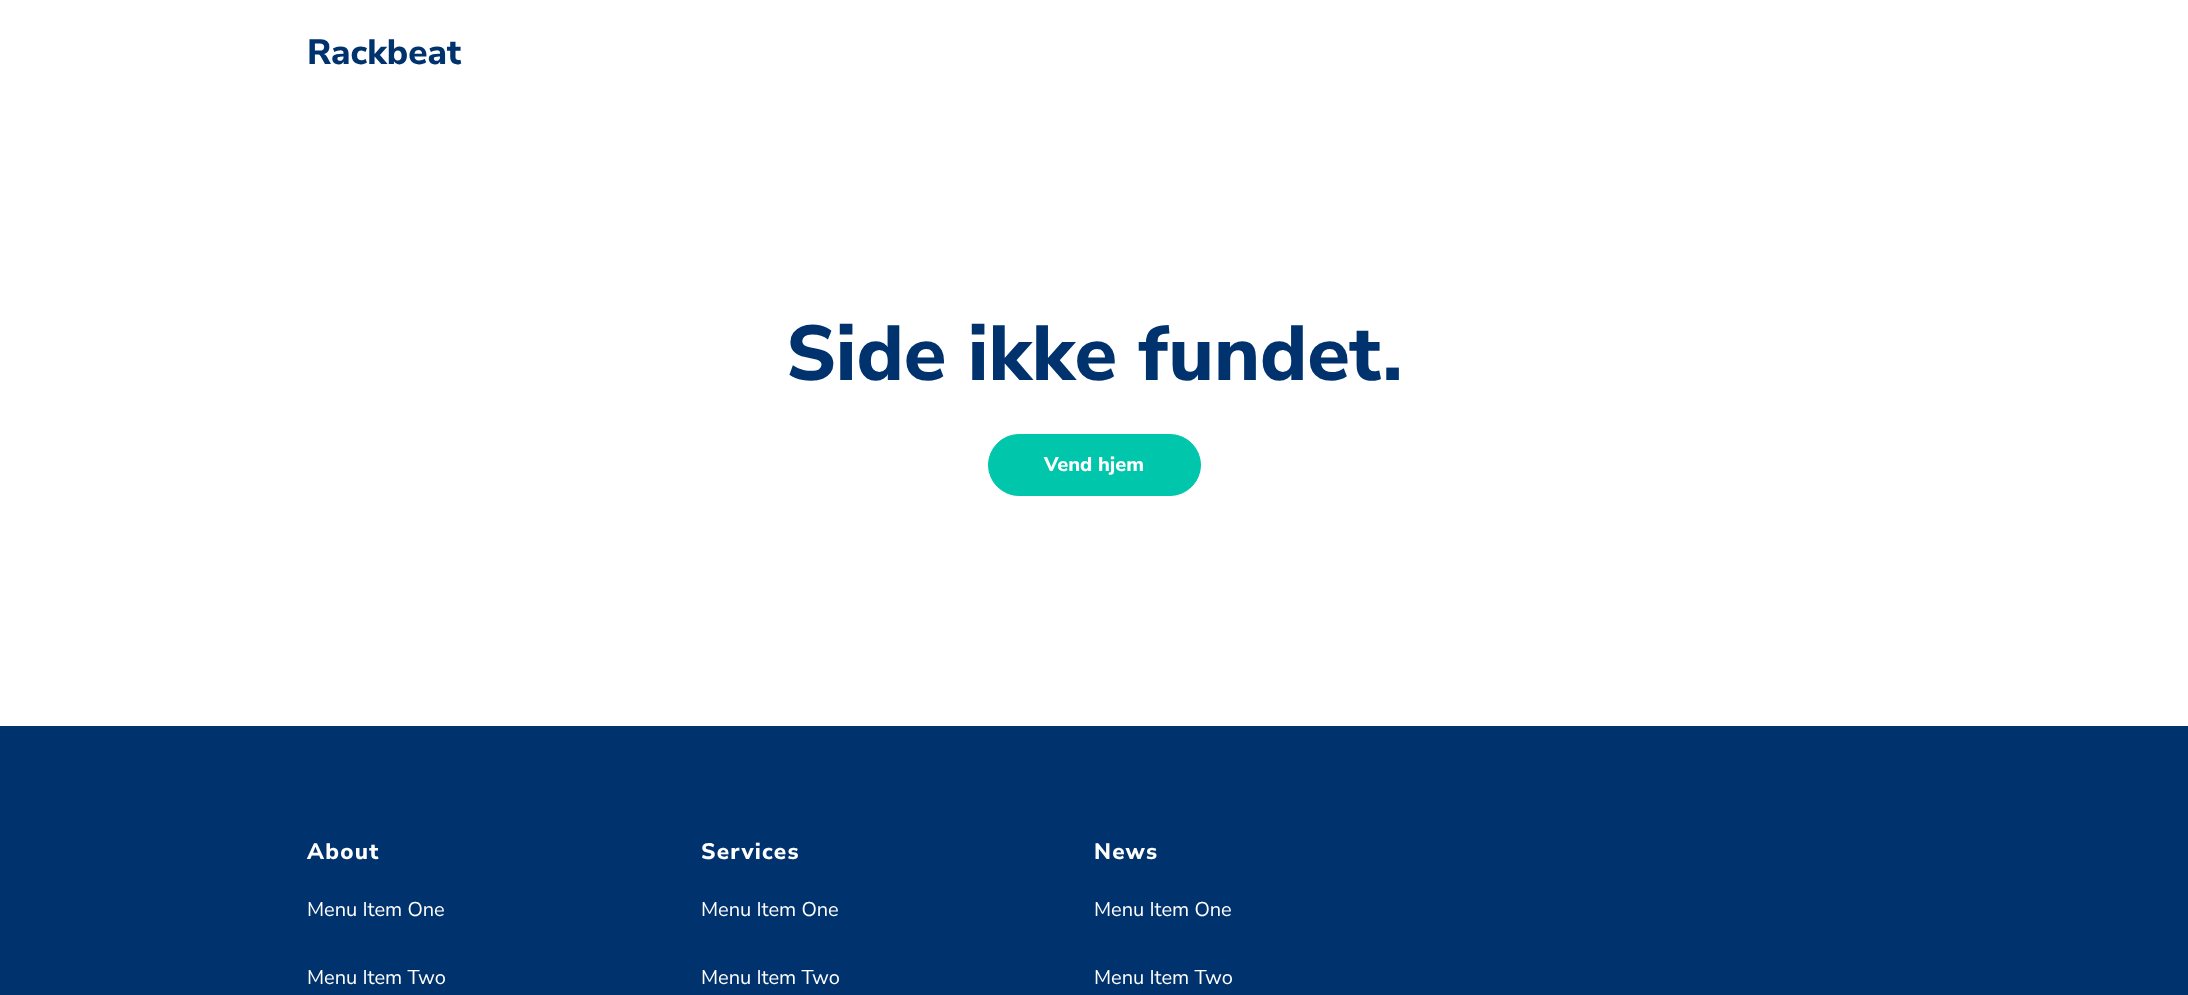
<?xml version="1.0" encoding="UTF-8"?>
<svg xmlns="http://www.w3.org/2000/svg" width="2188" height="995">
    <rect width="100%" height="100%" fill="#FFFFFF"/>
    <text x="307" y="64" font-family="Nunito Sans" font-size="35" font-weight="800" fill="#00326D">Rackbeat</text>
    <text x="786" y="380" font-family="Nunito Sans" font-size="77.5" font-weight="800" fill="#00326D">Side ikke fundet.</text>
    <rect x="988.5" y="434.5" width="212" height="61" rx="30.5" fill="#00C6AB" stroke="#00C6AB"/>
    <text x="1044" y="471" font-family="Nunito Sans" font-size="20" font-weight="800" fill="#FFFFFF">Vend hjem</text>
    <rect x="0" y="726" width="2188" height="269" fill="#00326D"/>
    <text x="307" y="859" font-family="Nunito Sans" font-size="22.5" font-weight="800" letter-spacing="1.25" fill="#FFFFFF">About</text>
    <text x="307" y="916" font-family="Nunito Sans" font-size="20" fill="#FFFFFF">Menu Item One</text>
    <text x="307" y="984" font-family="Nunito Sans" font-size="20" fill="#FFFFFF">Menu Item Two</text>
    <text x="701" y="859" font-family="Nunito Sans" font-size="22.5" font-weight="800" letter-spacing="1.25" fill="#FFFFFF">Services</text>
    <text x="701" y="916" font-family="Nunito Sans" font-size="20" fill="#FFFFFF">Menu Item One</text>
    <text x="701" y="984" font-family="Nunito Sans" font-size="20" fill="#FFFFFF">Menu Item Two</text>
    <text x="1094" y="859" font-family="Nunito Sans" font-size="22.5" font-weight="800" letter-spacing="1.25" fill="#FFFFFF">News</text>
    <text x="1094" y="916" font-family="Nunito Sans" font-size="20" fill="#FFFFFF">Menu Item One</text>
    <text x="1094" y="984" font-family="Nunito Sans" font-size="20" fill="#FFFFFF">Menu Item Two</text>
</svg>
